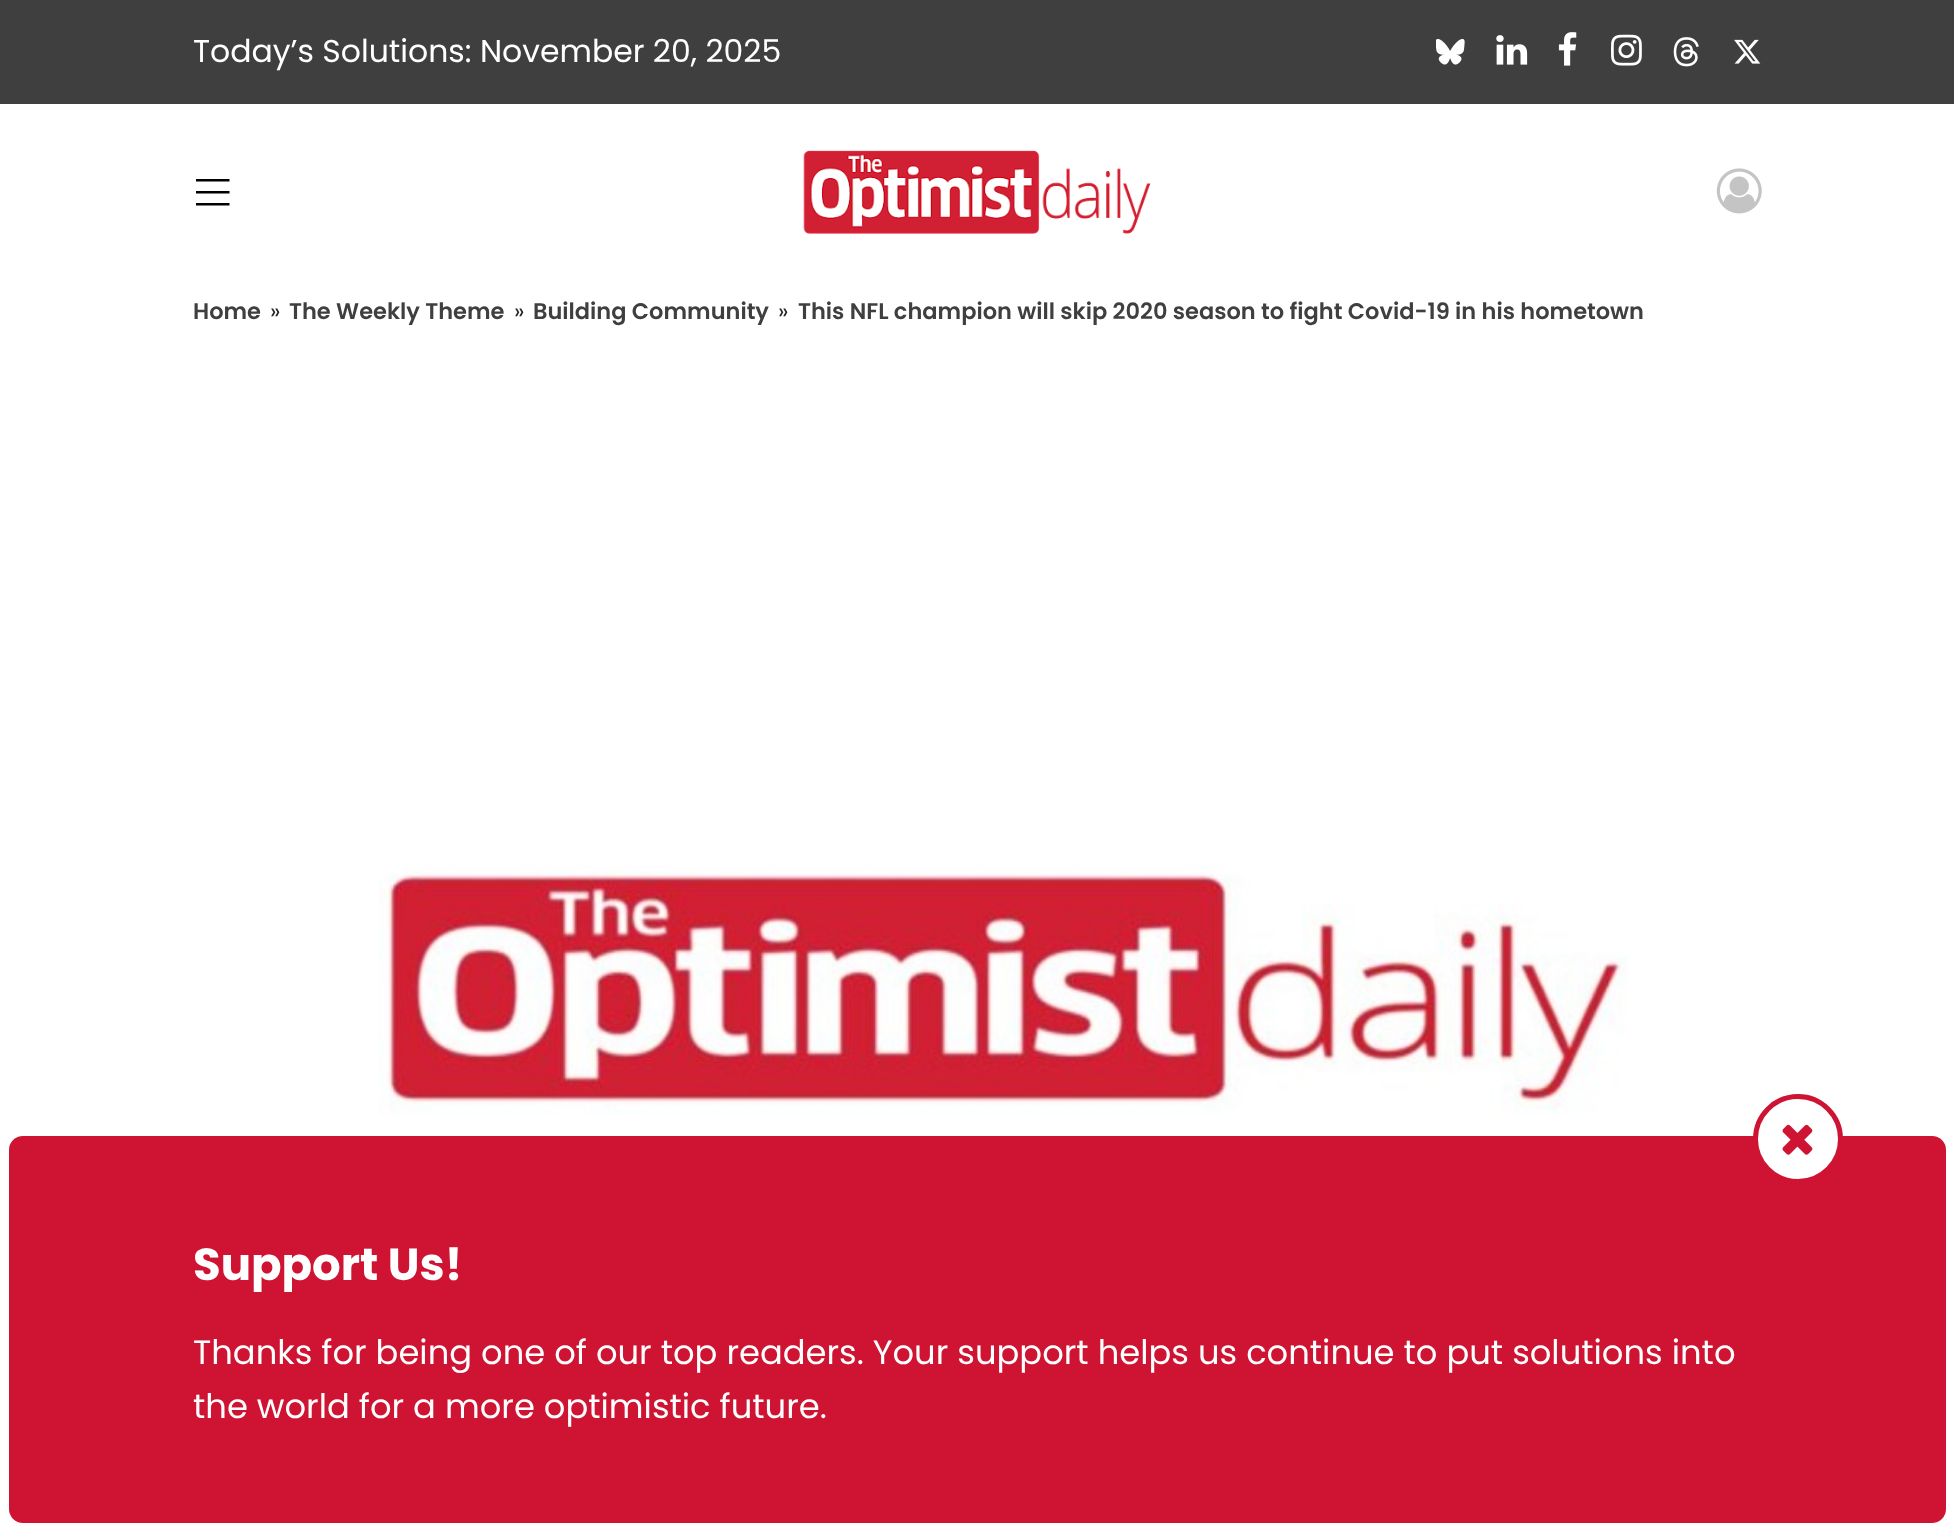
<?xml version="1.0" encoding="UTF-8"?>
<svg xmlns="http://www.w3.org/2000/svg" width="1954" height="1531">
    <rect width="100%" height="100%" fill="#FFFFFF"/>
    <rect x="0" y="0" width="1954" height="104" fill="#3F3F3F"/>
    <text x="193" y="62" font-family="Poppins" font-size="31.5" fill="#FFFFFF">Today’s Solutions: November 20, 2025</text>
    <image x="1436" y="39" width="29" height="26" href="img_01.png"/>
    <image x="1496" y="35" width="32" height="30" href="img_02.png"/>
    <image x="1558" y="32" width="19" height="34" href="img_03.png"/>
    <image x="1611" y="34" width="31" height="32" href="img_04.png"/>
    <image x="1673" y="37" width="26" height="30" href="img_05.png"/>
    <image x="1734" y="39" width="27" height="25" href="img_06.png"/>
    <path d="M 196 179 V 181.5 H 229.5 V 179 Z M 196 193.5 H 229.5 V 191 H 196 Z M 196 205.5 H 229.5 V 203 H 196 Z" fill="#000000"/>
    <image x="803" y="150" width="348" height="84" href="img_07.png"/>
    <image x="1716" y="168" width="46" height="46" href="img_08.png"/>
    <text x="193" y="319" font-family="Poppins" font-size="22.5" font-weight="600" fill="#3F3F3F">Home</text>
    <text x="270" y="319" font-family="Poppins" font-size="22.5" fill="#212529">»</text>
    <text x="289" y="319" font-family="Poppins" font-size="22.5" font-weight="600" fill="#3F3F3F">The Weekly Theme</text>
    <text x="514" y="319" font-family="Poppins" font-size="22.5" fill="#212529">»</text>
    <text x="533" y="319" font-family="Poppins" font-size="22.5" font-weight="600" fill="#3F3F3F">Building Community</text>
    <text x="778" y="319" font-family="Poppins" font-size="22.5" fill="#212529">»</text>
    <text x="798" y="319" font-family="Poppins" font-size="22.5" font-weight="600" fill="#3F3F3F">This NFL champion will skip 2020 season to fight Covid-19 in his hometown</text>
    <image x="378" y="865" width="1250" height="251" href="img_09.png"/>
    <rect x="9" y="1136" width="1937" height="387" rx="14" fill="#CE1432"/>
    <circle cx="1798" cy="1139" r="42.5" fill="#FFFFFF" stroke="#CE1432" stroke-width="5"/>
    <image x="1782" y="1124" width="31" height="31" href="img_10.png"/>
    <text x="193" y="1280" font-family="Poppins" font-size="45" font-weight="700" fill="#FFFFFF">Support Us!</text>
    <text font-family="Poppins" font-size="33.75" fill="#FFFFFF">
        <tspan x="193" y="1364">Thanks for being one of our top readers. Your support helps us continue to put solutions into</tspan>
        <tspan x="193" y="1418">the world for a more optimistic future.</tspan>
    </text>
</svg>
